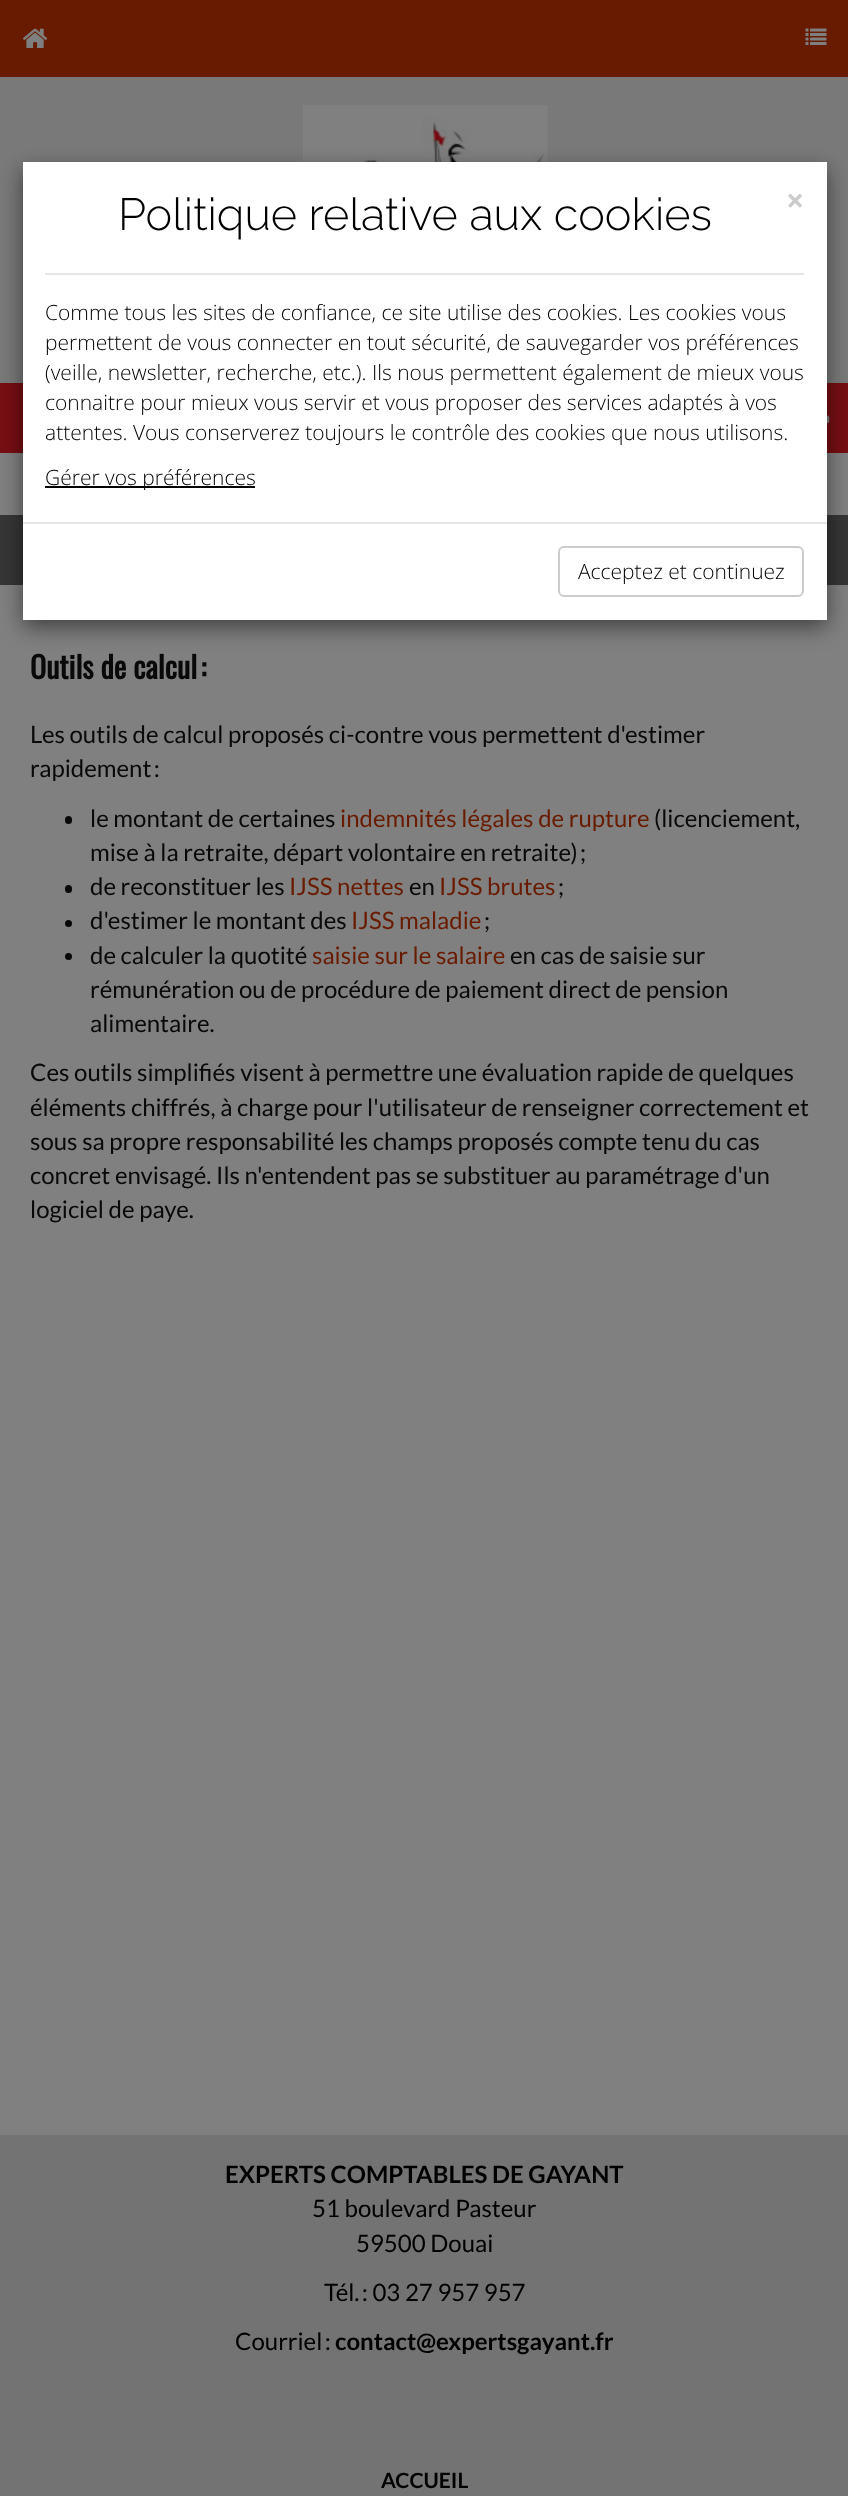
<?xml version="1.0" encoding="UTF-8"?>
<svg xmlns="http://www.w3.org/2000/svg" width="848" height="2496">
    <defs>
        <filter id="blur1" x="-50%" y="-200%" width="200%" height="500%"><feGaussianBlur stdDeviation="11"/></filter>
    </defs>
    <rect width="100%" height="100%" fill="#797979"/>
    <rect x="0" y="0" width="848" height="77" fill="#691B00"/>
    <image x="22" y="28" width="26" height="20" href="img_01.png"/>
    <image x="805" y="28" width="22" height="17" href="img_02.png"/>
    <image x="303" y="105" width="245" height="57" href="img_03.png"/>
    <rect x="0" y="2135" width="848" height="361" fill="#737373"/>
    <rect x="0" y="453" width="848" height="1682" fill="#808080"/>
    <rect x="0" y="383" width="848" height="70" fill="#760E12"/>
    <image x="827" y="415" width="3" height="9" href="img_04.png"/>
    <rect x="0" y="515" width="848" height="70" fill="#353535"/>
    <rect x="23" y="170" width="804" height="457" fill="#000000" fill-opacity="0.5" filter="url(#blur1)"/>
    <rect x="23" y="162" width="804" height="458" fill="#FFFFFF"/>
    <text x="118" y="230" font-family="Raleway" font-size="45" font-weight="100" fill="#000000">Politique relative aux cookies</text>
    <text x="786" y="212" font-family="Open Sans" font-size="32" font-weight="700" fill="#CCCCCC">×</text>
    <rect x="45" y="273" width="759" height="2" fill="#E5E5E5"/>
    <text font-family="Open Sans" font-size="21" font-weight="300" fill="#000000">
        <tspan x="45" y="320">Comme tous les sites de confiance, ce site utilise des cookies. Les cookies vous</tspan>
        <tspan x="45" y="350">permettent de vous connecter en tout sécurité, de sauvegarder vos préférences</tspan>
        <tspan x="45" y="380">(veille, newsletter, recherche, etc.). Ils nous permettent également de mieux vous</tspan>
        <tspan x="45" y="410">connaitre pour mieux vous servir et vous proposer des services adaptés à vos</tspan>
        <tspan x="45" y="440">attentes. Vous conserverez toujours le contrôle des cookies que nous utilisons.</tspan>
    </text>
    <rect x="45" y="486" width="210" height="2" fill="#000000"/>
    <text x="45" y="485" font-family="Open Sans" font-size="21" font-weight="300" fill="#000000">Gérer vos préférences</text>
    <rect x="23" y="522" width="804" height="2" fill="#E5E5E5"/>
    <rect x="559" y="547" width="244" height="49" rx="5" fill="none" stroke="#CCCCCC" stroke-width="2"/>
    <text x="578" y="579" font-family="Open Sans" font-size="21" font-weight="300" fill="#000000">Acceptez et continuez</text>
    <text x="225" y="2183" font-family="Lato" font-size="24" font-weight="700" fill="#000000">EXPERTS COMPTABLES DE GAYANT</text>
    <text x="312" y="2217" font-family="Lato" font-size="24" fill="#000000">51 boulevard Pasteur</text>
    <text x="356" y="2252" font-family="Lato" font-size="24" fill="#000000">59500 Douai</text>
    <text x="324" y="2301" font-family="Lato" font-size="24" fill="#000000">Tél. : 03 27 957 957</text>
    <text x="235" y="2350" font-family="Lato" font-size="24" fill="#000000">Courriel :</text>
    <text x="335" y="2350" font-family="Lato" font-size="24" font-weight="700" fill="#000000">contact@expertsgayant.fr</text>
    <text x="381" y="2488" font-family="Lato" font-size="21" font-weight="700" fill="#000000">ACCUEIL</text>
    <text x="30" y="679" font-family="Oswald" font-size="30" font-weight="700" fill="#090909">Outils de calcul :</text>
    <text font-family="Lato" font-size="24" fill="#090909">
        <tspan x="30" y="743">Les outils de calcul proposés ci-contre vous permettent d'estimer</tspan>
        <tspan x="30" y="777">rapidement :</tspan>
    </text>
    <rect x="65" y="816" width="7" height="8" rx="3.5" fill="#090909"/>
    <text x="90" y="827" font-family="Lato" font-size="24" fill="#090909">le montant de certaines</text>
    <text x="340" y="827" font-family="Lato" font-size="24" fill="#691B00">indemnités légales de rupture</text>
    <text x="654" y="827" font-family="Lato" font-size="24" fill="#090909">(licenciement,</text>
    <text x="90" y="861" font-family="Lato" font-size="24" fill="#090909">mise à la retraite, départ volontaire en retraite) ;</text>
    <rect x="65" y="885" width="7" height="8" rx="3.5" fill="#090909"/>
    <text x="90" y="895" font-family="Lato" font-size="24" fill="#090909">de reconstituer les</text>
    <text x="289" y="895" font-family="Lato" font-size="24" fill="#691B00">IJSS nettes</text>
    <text x="409" y="895" font-family="Lato" font-size="24" fill="#090909">en</text>
    <text x="439" y="895" font-family="Lato" font-size="24" fill="#691B00">IJSS brutes</text>
    <text x="558" y="895" font-family="Lato" font-size="24" fill="#090909">;</text>
    <circle cx="68.5" cy="923.5" r="3.5" fill="#090909"/>
    <text x="90" y="929" font-family="Lato" font-size="24" fill="#090909">d'estimer le montant des</text>
    <text x="351" y="929" font-family="Lato" font-size="24" fill="#691B00">IJSS maladie</text>
    <text x="484" y="929" font-family="Lato" font-size="24" fill="#090909">;</text>
    <circle cx="68.5" cy="956.5" r="3.5" fill="#090909"/>
    <text x="90" y="964" font-family="Lato" font-size="24" fill="#090909">de calculer la quotité</text>
    <text x="312" y="964" font-family="Lato" font-size="24" fill="#691B00">saisie sur le salaire</text>
    <text x="510" y="964" font-family="Lato" font-size="24" fill="#090909">en cas de saisie sur</text>
    <text font-family="Lato" font-size="24" fill="#090909">
        <tspan x="90" y="998">rémunération ou de procédure de paiement direct de pension</tspan>
        <tspan x="90" y="1032">alimentaire.</tspan>
    </text>
    <text font-family="Lato" font-size="24" fill="#090909">
        <tspan x="30" y="1081">Ces outils simplifiés visent à permettre une évaluation rapide de quelques</tspan>
        <tspan x="30" y="1116">éléments chiffrés, à charge pour l'utilisateur de renseigner correctement et</tspan>
        <tspan x="30" y="1150">sous sa propre responsabilité les champs proposés compte tenu du cas</tspan>
        <tspan x="30" y="1184">concret envisagé. Ils n'entendent pas se substituer au paramétrage d'un</tspan>
        <tspan x="30" y="1218">logiciel de paye.</tspan>
    </text>
</svg>
